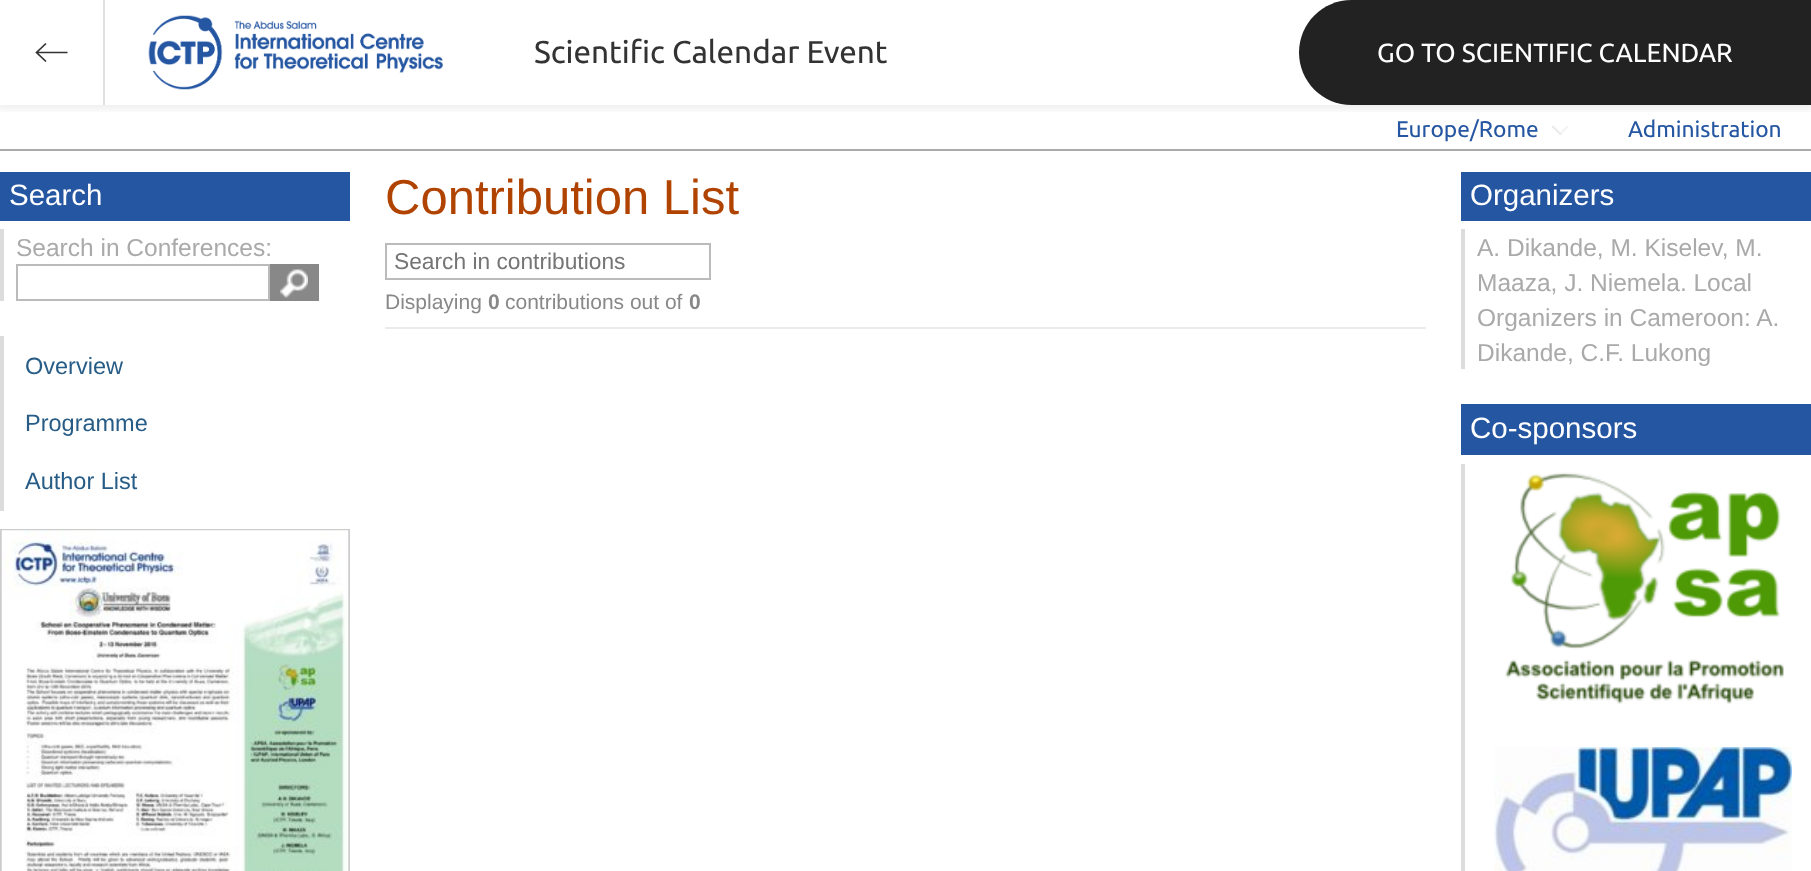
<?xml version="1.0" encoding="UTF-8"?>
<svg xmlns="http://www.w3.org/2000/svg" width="1811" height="871">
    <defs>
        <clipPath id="clip1"><rect x="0" y="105" width="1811" height="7"/></clipPath>
        <filter id="blur1" x="-50%" y="-200%" width="200%" height="500%"><feGaussianBlur stdDeviation="4.5"/></filter>
    </defs>
    <rect width="100%" height="100%" fill="#FFFFFF"/>
    <g clip-path="url(#clip1)">
        <rect x="-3" y="-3" width="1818" height="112" fill="#000000" fill-opacity="0.07" filter="url(#blur1)"/>
    </g>
    <rect x="103" y="0" width="2" height="105" fill="#E0E0E0"/>
    <path d="M 46 61.5 L 36.5 52.5 L 46 43.5 M 36.5 52.5 H 67.5" fill="none" stroke="#333333" stroke-width="1.7"/>
    <image x="148" y="15" width="295" height="75" href="img_01.png"/>
    <text x="534" y="63" font-family="Ubuntu" font-size="31.5" fill="#333333">Scientific Calendar Event</text>
    <path d="M 1351.5 0 H 1811 V 105 H 1351.5 C 1322.5 105 1299 81.5 1299 52.5 C 1299 23.5 1322.5 0 1351.5 0 Z" fill="#222222"/>
    <text x="1377" y="62" font-family="Ubuntu" font-size="26.25" fill="#FFFFFF">GO TO SCIENTIFIC CALENDAR</text>
    <rect x="0" y="149" width="1811" height="2" fill="#AAAAAA"/>
    <image x="1552" y="125" width="16" height="10" href="img_02.png"/>
    <text x="1396" y="137" font-family="Ubuntu" font-size="22.75" fill="#2556A2">Europe/Rome</text>
    <text x="1628" y="137" font-family="Ubuntu" font-size="22.75" fill="#2556A2">Administration</text>
    <rect x="0" y="172" width="350" height="49" fill="#2556A2"/>
    <text x="9" y="205" font-family="Liberation Sans" font-size="29.5" fill="#FFFFFF">Search</text>
    <rect x="0" y="229" width="4" height="72" fill="#DCDCDC"/>
    <text x="16" y="256" font-family="Liberation Sans" font-size="24.5" fill="#AAAAAA">Search in Conferences:</text>
    <rect x="17" y="265" width="252" height="35" fill="none" stroke="#BBBBBB" stroke-width="2"/>
    <rect x="270" y="264" width="49" height="37" fill="#888888"/>
    <image x="280" y="269" width="28" height="29" href="img_03.png"/>
    <rect x="0" y="336" width="4" height="175" fill="#DCDCDC"/>
    <text x="25" y="374" font-family="Liberation Sans" font-size="23.5" fill="#275C86">Overview</text>
    <text x="25" y="431" font-family="Liberation Sans" font-size="23.5" fill="#275C86">Programme</text>
    <text x="25" y="489" font-family="Liberation Sans" font-size="23.5" fill="#275C86">Author List</text>
    <rect x="1" y="530" width="348" height="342" fill="none" stroke="#CCCCCC" stroke-width="2"/>
    <image x="1" y="530" width="348" height="341" href="img_04.png"/>
    <text x="385" y="214" font-family="Liberation Sans" font-size="49" fill="#B14300">Contribution List</text>
    <rect x="385" y="327" width="1041" height="2" fill="#EBEBEB"/>
    <rect x="386" y="244" width="324" height="35" fill="none" stroke="#BBBBBB" stroke-width="2"/>
    <text x="394" y="269" font-family="Liberation Sans" font-size="22.75" fill="#757575">Search in contributions</text>
    <text x="385" y="309" font-family="Liberation Sans" font-size="21" fill="#888888">Displaying</text>
    <text x="488" y="309" font-family="Liberation Sans" font-size="21" font-weight="700" fill="#888888">0</text>
    <text x="505" y="309" font-family="Liberation Sans" font-size="21" fill="#888888">contributions out of</text>
    <text x="689" y="309" font-family="Liberation Sans" font-size="21" font-weight="700" fill="#888888">0</text>
    <rect x="1461" y="172" width="350" height="49" fill="#2556A2"/>
    <text x="1470" y="205" font-family="Liberation Sans" font-size="29.5" fill="#FFFFFF">Organizers</text>
    <rect x="1461" y="229" width="4" height="140" fill="#DCDCDC"/>
    <text font-family="Liberation Sans" font-size="24.5" fill="#AAAAAA">
        <tspan x="1477" y="256">A. Dikande, M. Kiselev, M.</tspan>
        <tspan x="1477" y="291">Maaza, J. Niemela. Local</tspan>
        <tspan x="1477" y="326">Organizers in Cameroon: A.</tspan>
        <tspan x="1477" y="361">Dikande, C.F. Lukong</tspan>
    </text>
    <rect x="1461" y="404" width="350" height="51" fill="#2556A2"/>
    <text x="1470" y="438" font-family="Liberation Sans" font-size="29.5" fill="#FFFFFF">Co-sponsors</text>
    <rect x="1461" y="464" width="4" height="407" fill="#DCDCDC"/>
    <image x="1505" y="472" width="279" height="232" href="img_05.png"/>
    <image x="1494" y="747" width="298" height="124" href="img_06.png"/>
</svg>
